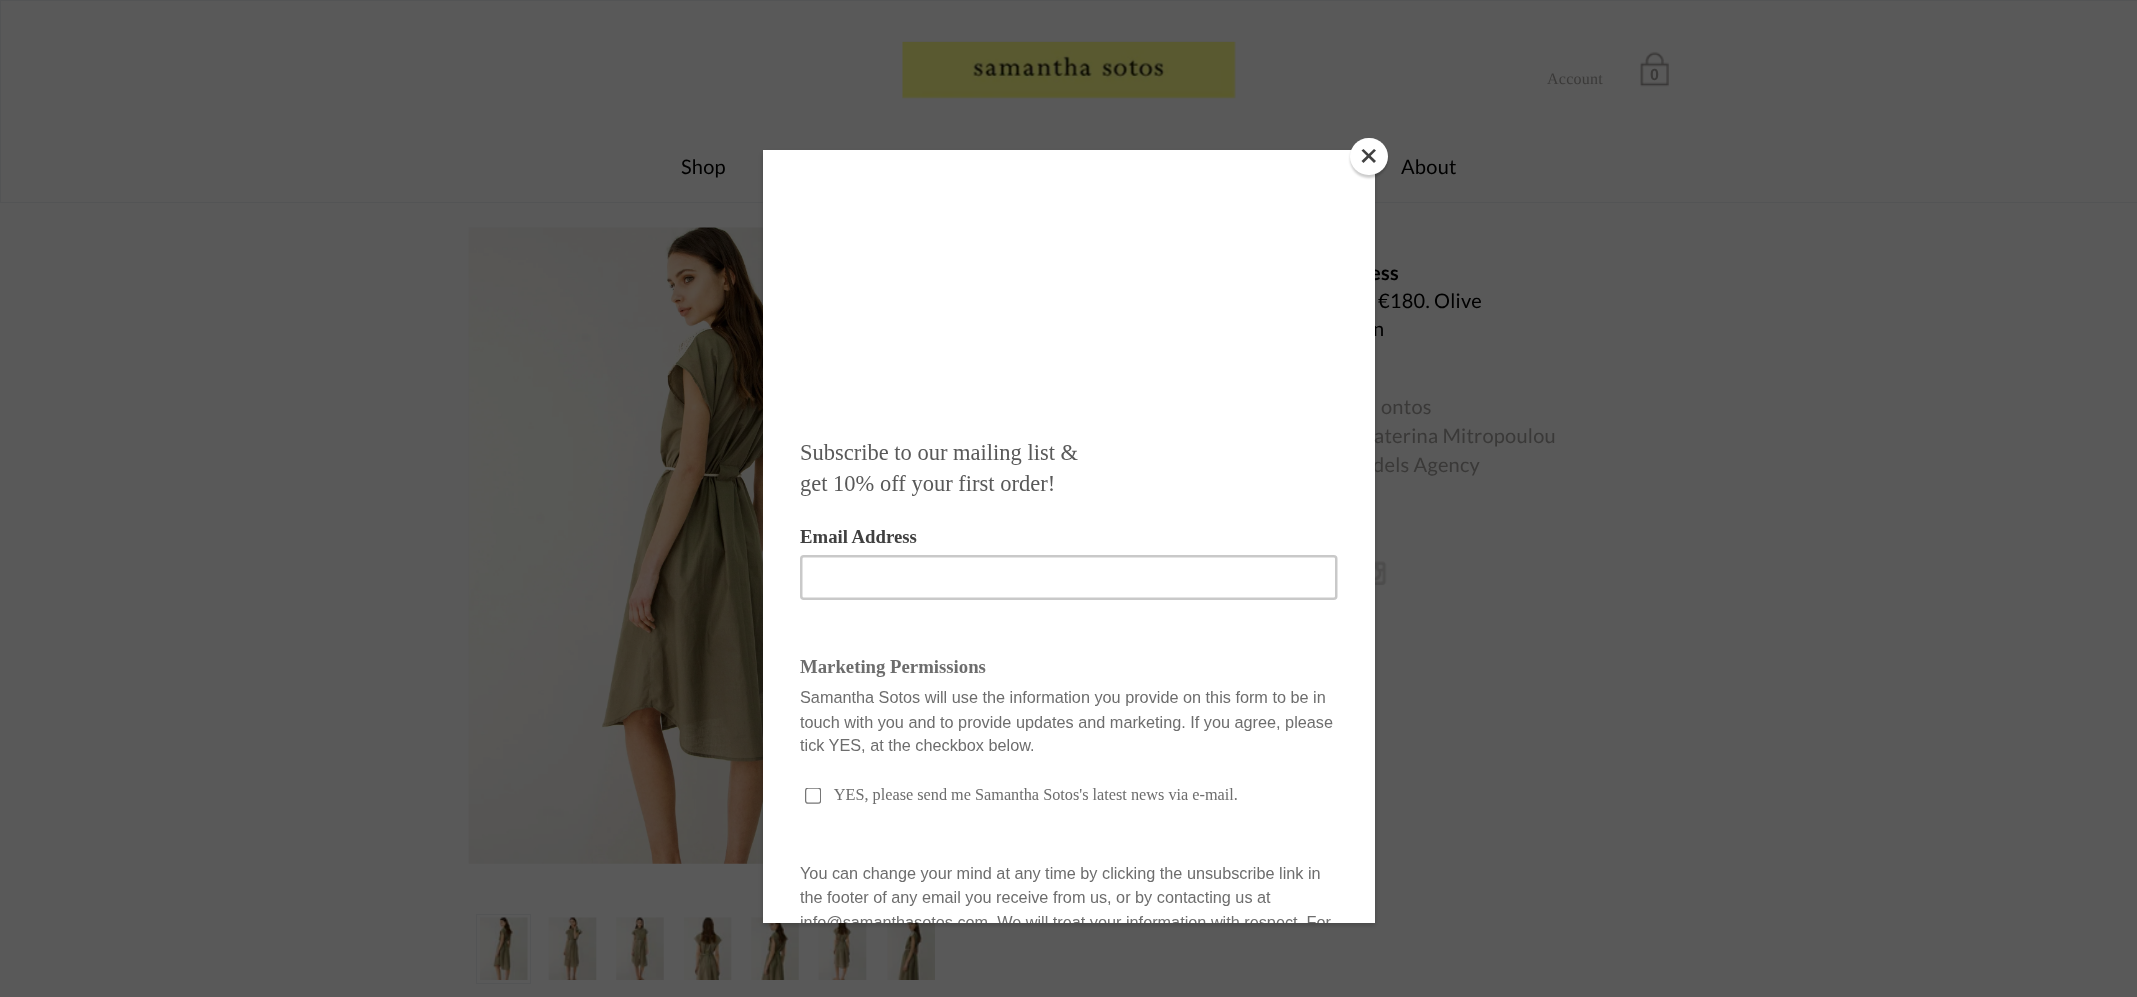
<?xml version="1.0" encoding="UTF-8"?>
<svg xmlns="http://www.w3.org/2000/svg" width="2137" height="997">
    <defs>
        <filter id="blur1" x="-50%" y="-200%" width="200%" height="500%"><feGaussianBlur stdDeviation="2.5"/></filter>
        <filter id="blur2" x="-50%" y="-200%" width="200%" height="500%"><feGaussianBlur stdDeviation="1"/></filter>
    </defs>
    <rect width="100%" height="100%" fill="#595959"/>
    <rect x="0.5" y="0.5" width="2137" height="202" fill="none" stroke="#535455"/>
    <image x="902" y="41" width="334" height="58" href="img_01.png"/>
    <text x="1547" y="84" font-family="Liberation Serif" font-size="16" letter-spacing="0.25" fill="#3A3938">Account</text>
    <image x="1640" y="51" width="29" height="36" href="img_02.png"/>
    <text x="1650" y="80" font-family="Liberation Sans" font-size="16" font-weight="700" letter-spacing="0.25" fill="#3A3938">0</text>
    <text x="681" y="174" font-family="Lato" font-size="20" letter-spacing="0.25" fill="#000000">Shop</text>
    <text x="1401" y="174" font-family="Lato" font-size="20" letter-spacing="0.25" fill="#000000">About</text>
    <image x="468" y="227" width="295" height="637" href="img_04.png"/>
    <image x="751" y="917" width="48" height="63" href="img_09.png"/>
    <image x="818" y="923" width="49" height="57" href="img_10.png"/>
    <image x="887" y="923" width="48" height="57" href="img_11.png"/>
    <image x="1375" y="561" width="12" height="25" href="img_12.png"/>
    <rect x="763" y="153" width="612" height="772" fill="#000000" fill-opacity="0.2" filter="url(#blur1)"/>
    <text x="1370" y="280" font-family="Lato" font-size="20" font-weight="700" letter-spacing="0.25" fill="#000000">ess</text>
    <text x="1373" y="336" font-family="Lato" font-size="20" letter-spacing="0.25" fill="#000000">n</text>
    <text x="1373" y="472" font-family="Lato" font-size="20" letter-spacing="0.25" fill="#3A3938">dels Agency</text>
    <image x="763" y="150" width="612" height="773" href="img_03.png"/>
    <rect x="1350" y="140" width="38" height="38" rx="19" fill="#000000" fill-opacity="0.2" filter="url(#blur2)"/>
    <rect x="1350" y="138" width="38" height="37" rx="18.5" fill="#FFFFFF"/>
    <path d="M 1374 149 L 1376 150.5 L 1363.5 163 L 1361.5 161 Z" fill="#414141"/>
    <path d="M 1361.5 150.5 L 1363.5 149 L 1376 161 L 1374 163 Z" fill="#414141"/>
    <rect x="476.5" y="914.5" width="54" height="69" fill="none" stroke="#535455"/>
    <image x="480" y="917" width="48" height="63" href="img_05.png"/>
    <image x="548" y="917" width="49" height="63" href="img_06.png"/>
    <image x="616" y="917" width="48" height="63" href="img_07.png"/>
    <image x="684" y="917" width="48" height="63" href="img_08.png"/>
    <text x="1378" y="308" font-family="Lato" font-size="20" letter-spacing="0.25" fill="#000000">€180. Olive</text>
    <text x="1381" y="414" font-family="Lato" font-size="20" letter-spacing="0.25" fill="#3A3938">ontos</text>
    <text x="1374" y="443" font-family="Lato" font-size="20" letter-spacing="0.25" fill="#3A3938">aterina Mitropoulou</text>
</svg>
